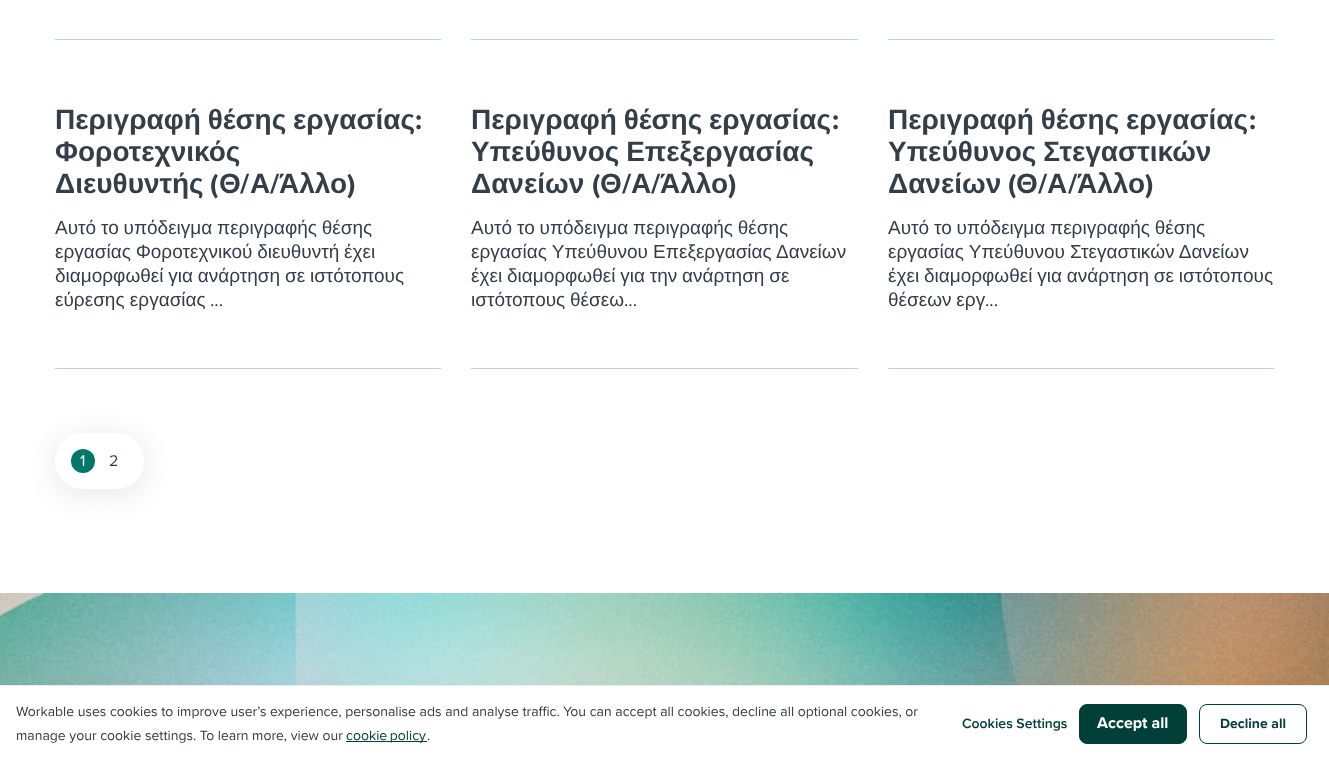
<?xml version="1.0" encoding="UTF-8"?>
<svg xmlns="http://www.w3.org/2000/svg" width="1329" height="760">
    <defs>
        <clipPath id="clip1"><path d="M 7 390 H 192 V 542 H 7 Z M 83 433 H 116 C 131.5 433 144 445.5 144 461 C 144 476.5 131.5 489 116 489 H 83 C 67.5 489 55 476.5 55 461 C 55 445.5 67.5 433 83 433 Z" clip-rule="evenodd"/></clipPath>
        <filter id="blur1" x="-50%" y="-200%" width="200%" height="500%"><feGaussianBlur stdDeviation="14.5"/></filter>
        <filter id="blur2" x="-50%" y="-200%" width="200%" height="500%"><feGaussianBlur stdDeviation="21.5"/></filter>
    </defs>
    <rect width="100%" height="100%" fill="#FFFFFF"/>
    <rect x="55" y="39" width="386" height="1" fill="#C4CFDE"/>
    <rect x="471" y="39" width="387" height="1" fill="#C4CFDE"/>
    <rect x="888" y="39" width="386" height="1" fill="#C4CFDE"/>
    <rect x="55" y="368" width="386" height="1" fill="#C4CFDE"/>
    <text x="55" y="129" word-spacing="-1" font-family="Liberation Sans" font-size="28" font-weight="700" fill="#333E49">Περιγραφή θέσης εργασίας</text>
    <text x="415" y="129" font-family="Proxima Nova" font-size="28" font-weight="700" fill="#333E49">:</text>
    <text font-family="Liberation Sans" font-size="28" font-weight="700" fill="#333E49">
        <tspan x="55" y="161">Φοροτεχνικός</tspan>
        <tspan x="55" y="193">Διευθυντής</tspan>
    </text>
    <text x="210" y="193" font-family="Proxima Nova" font-size="28" font-weight="700" fill="#333E49">(</text>
    <text x="219" y="193" font-family="Liberation Sans" font-size="28" font-weight="700" fill="#333E49">Θ</text>
    <text x="240" y="193" font-family="Proxima Nova" font-size="28" font-weight="700" fill="#333E49">/</text>
    <text x="250" y="193" font-family="Liberation Sans" font-size="28" font-weight="700" fill="#333E49">Α</text>
    <text x="270" y="193" font-family="Proxima Nova" font-size="28" font-weight="700" fill="#333E49">/</text>
    <text x="279" y="193" font-family="Liberation Sans" font-size="28" font-weight="700" fill="#333E49">Άλλο</text>
    <text x="347" y="193" font-family="Proxima Nova" font-size="28" font-weight="700" fill="#333E49">)</text>
    <text font-family="Liberation Sans" font-size="19" fill="#333E49">
        <tspan x="55" y="234" word-spacing="-0.5">Αυτό το υπόδειγμα περιγραφής θέσης</tspan>
        <tspan x="55" y="258" word-spacing="-0.5">εργασίας Φοροτεχνικού διευθυντή έχει</tspan>
        <tspan x="55" y="282" word-spacing="-0.5">διαμορφωθεί για ανάρτηση σε ιστότοπους</tspan>
        <tspan x="55" y="306">εύρεσης εργασίας</tspan>
    </text>
    <text x="210" y="306" font-family="Proxima Nova" font-size="19" fill="#333E49">...</text>
    <rect x="471" y="368" width="387" height="1" fill="#C4CFDE"/>
    <text x="471" y="129" word-spacing="-1" font-family="Liberation Sans" font-size="28" font-weight="700" fill="#333E49">Περιγραφή θέσης εργασίας</text>
    <text x="832" y="129" font-family="Proxima Nova" font-size="28" font-weight="700" fill="#333E49">:</text>
    <text font-family="Liberation Sans" font-size="28" font-weight="700" fill="#333E49">
        <tspan x="471" y="161" word-spacing="-1">Υπεύθυνος Επεξεργασίας</tspan>
        <tspan x="471" y="193">Δανείων</tspan>
    </text>
    <text x="592" y="193" font-family="Proxima Nova" font-size="28" font-weight="700" fill="#333E49">(</text>
    <text x="600" y="193" font-family="Liberation Sans" font-size="28" font-weight="700" fill="#333E49">Θ</text>
    <text x="622" y="193" font-family="Proxima Nova" font-size="28" font-weight="700" fill="#333E49">/</text>
    <text x="631" y="193" font-family="Liberation Sans" font-size="28" font-weight="700" fill="#333E49">Α</text>
    <text x="651" y="193" font-family="Proxima Nova" font-size="28" font-weight="700" fill="#333E49">/</text>
    <text x="660" y="193" font-family="Liberation Sans" font-size="28" font-weight="700" fill="#333E49">Άλλο</text>
    <text x="728" y="193" font-family="Proxima Nova" font-size="28" font-weight="700" fill="#333E49">)</text>
    <text font-family="Liberation Sans" font-size="19" fill="#333E49">
        <tspan x="471" y="234" word-spacing="-0.5">Αυτό το υπόδειγμα περιγραφής θέσης</tspan>
        <tspan x="471" y="258">εργασίας Υπεύθυνου Επεξεργασίας Δανείων</tspan>
        <tspan x="471" y="282" word-spacing="-0.5">έχει διαμορφωθεί για την ανάρτηση σε</tspan>
        <tspan x="471" y="306" word-spacing="-0.5">ιστότοπους θέσεω</tspan>
    </text>
    <text x="624" y="306" font-family="Proxima Nova" font-size="19" fill="#333E49">...</text>
    <rect x="888" y="368" width="386" height="1" fill="#C4CFDE"/>
    <text x="888" y="129" word-spacing="-1" font-family="Liberation Sans" font-size="28" font-weight="700" fill="#333E49">Περιγραφή θέσης εργασίας</text>
    <text x="1249" y="129" font-family="Proxima Nova" font-size="28" font-weight="700" fill="#333E49">:</text>
    <text font-family="Liberation Sans" font-size="28" font-weight="700" fill="#333E49">
        <tspan x="888" y="161" word-spacing="-1">Υπεύθυνος Στεγαστικών</tspan>
        <tspan x="888" y="193">Δανείων</tspan>
    </text>
    <text x="1008" y="193" font-family="Proxima Nova" font-size="28" font-weight="700" fill="#333E49">(</text>
    <text x="1016" y="193" font-family="Liberation Sans" font-size="28" font-weight="700" fill="#333E49">Θ</text>
    <text x="1038" y="193" font-family="Proxima Nova" font-size="28" font-weight="700" fill="#333E49">/</text>
    <text x="1047" y="193" font-family="Liberation Sans" font-size="28" font-weight="700" fill="#333E49">Α</text>
    <text x="1068" y="193" font-family="Proxima Nova" font-size="28" font-weight="700" fill="#333E49">/</text>
    <text x="1077" y="193" font-family="Liberation Sans" font-size="28" font-weight="700" fill="#333E49">Άλλο</text>
    <text x="1145" y="193" font-family="Proxima Nova" font-size="28" font-weight="700" fill="#333E49">)</text>
    <text font-family="Liberation Sans" font-size="19" fill="#333E49">
        <tspan x="888" y="234" word-spacing="-0.5">Αυτό το υπόδειγμα περιγραφής θέσης</tspan>
        <tspan x="888" y="258">εργασίας Υπεύθυνου Στεγαστικών Δανείων</tspan>
        <tspan x="888" y="282" word-spacing="-0.5">έχει διαμορφωθεί για ανάρτηση σε ιστότοπους</tspan>
        <tspan x="888" y="306" word-spacing="-0.5">θέσεων εργ</tspan>
    </text>
    <text x="985" y="306" font-family="Proxima Nova" font-size="19" fill="#333E49">...</text>
    <g clip-path="url(#clip1)">
        <rect x="52" y="435" width="95" height="62" rx="31" fill="#000000" fill-opacity="0.08" filter="url(#blur1)"/>
    </g>
    <circle cx="83" cy="461" r="12" fill="#00756A"/>
    <text x="80" y="466" font-family="Proxima Nova" font-size="16" fill="#FFFFFF">1</text>
    <text x="109" y="466" font-family="Proxima Nova" font-size="16" fill="#333E49">2</text>
    <image x="0" y="593" width="1329" height="92" href="img_01.png"/>
    <rect x="0" y="701" width="1329" height="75" fill="#000000" fill-opacity="0.1" filter="url(#blur2)"/>
    <rect x="0" y="686" width="1329" height="74" fill="#FFFFFF"/>
    <rect x="0" y="685" width="1329" height="1" fill="#E9EDEF"/>
    <text font-family="Proxima Nova" font-size="14" fill="#333942">
        <tspan x="16" y="716">Workable uses cookies to improve user’s experience, personalise ads and analyse traffic. You can accept all cookies, decline all optional cookies, or</tspan>
        <tspan x="16" y="740">manage your cookie settings. To learn more, view our</tspan>
    </text>
    <rect x="346" y="741" width="81" height="1" fill="#004038"/>
    <text x="346" y="740" word-spacing="-1" font-family="Proxima Nova" font-size="14" fill="#004038">cookie policy</text>
    <text x="427" y="740" font-family="Proxima Nova" font-size="14" fill="#333942">.</text>
    <text x="962" y="728" font-family="Proxima Nova" font-size="14" font-weight="600" fill="#004038">Cookies Settings</text>
    <rect x="1079.5" y="704.5" width="107" height="39" rx="7.5" fill="#004038" stroke="#004038"/>
    <text x="1097" y="728" font-family="Proxima Nova" font-size="16" font-weight="700" fill="#FFFFFF">Accept all</text>
    <rect x="1199.5" y="704.5" width="107" height="39" rx="7.5" fill="none" stroke="#004038"/>
    <text x="1220" y="728" font-family="Proxima Nova" font-size="14" font-weight="700" fill="#004038">Decline all</text>
</svg>
